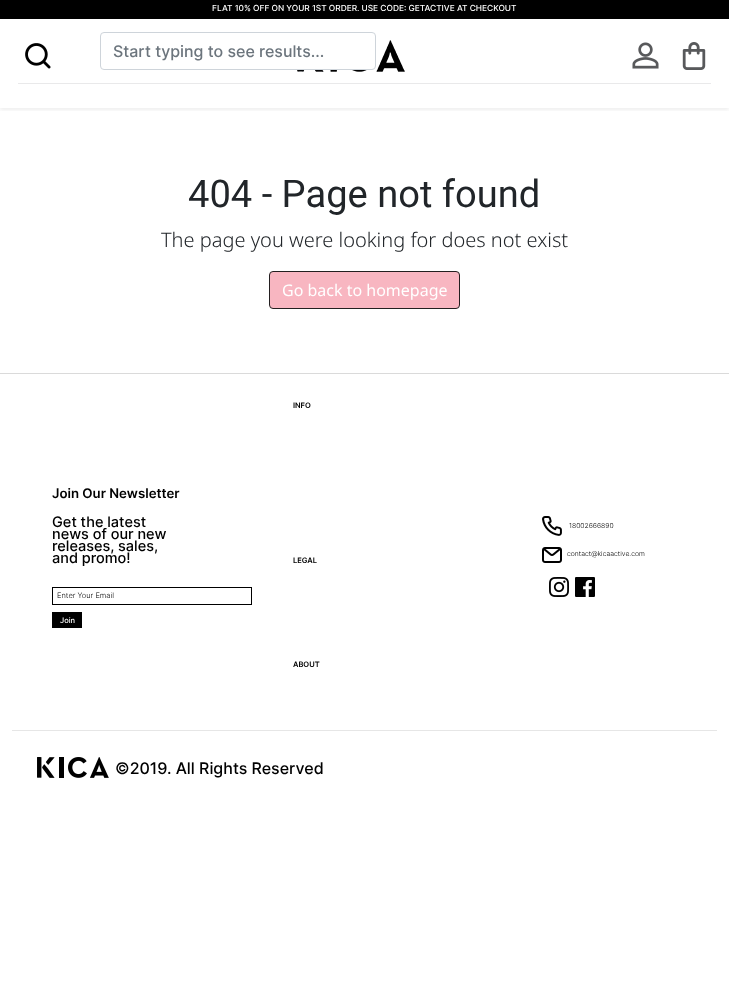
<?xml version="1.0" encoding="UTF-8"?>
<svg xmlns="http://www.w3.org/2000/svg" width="729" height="996">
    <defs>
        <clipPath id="clip1"><rect x="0" y="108" width="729" height="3"/></clipPath>
        <filter id="blur1" x="-50%" y="-200%" width="200%" height="500%"><feGaussianBlur stdDeviation="2"/></filter>
    </defs>
    <rect width="100%" height="100%" fill="#FFFFFF"/>
    <rect x="0" y="0" width="729" height="19" fill="#000000"/>
    <text x="212" y="11" font-family="Inter" font-size="8.35" font-weight="500" fill="#FFFFFF">FLAT 10% OFF ON YOUR 1ST ORDER. USE CODE: GETACTIVE AT CHECKOUT</text>
    <g clip-path="url(#clip1)">
        <rect x="0" y="21" width="729" height="89" fill="#000000" fill-opacity="0.07" filter="url(#blur1)"/>
    </g>
    <image x="25" y="43" width="26" height="26" href="img_01.png"/>
    <image x="297" y="40" width="108" height="32" href="img_02.png"/>
    <rect x="100.5" y="32.5" width="275" height="37" rx="3.5" fill="#FFFFFF" stroke="#CED4DA"/>
    <text x="113" y="57" font-family="Inter" font-size="16" font-weight="500" fill="#6C757D">Start typing to see results...</text>
    <image x="632" y="42" width="27" height="27" href="img_03.png"/>
    <image x="682" y="42" width="24" height="28" href="img_04.png"/>
    <rect x="18" y="83" width="693" height="1" fill="#E9E9EA"/>
    <text x="188" y="207" font-family="Roboto" font-size="38.1" fill="#212529">404 - Page not found</text>
    <text x="161" y="247" font-family="Noto Sans" font-size="20" font-weight="300" fill="#212529">The page you were looking for does not exist</text>
    <rect x="269.5" y="271.5" width="190" height="37" rx="3.5" fill="#F8B6C1" stroke="#231F20"/>
    <text x="282" y="296" font-family="Noto Sans" font-size="16" fill="#FFFFFF">Go back to homepage</text>
    <rect x="0" y="373" width="729" height="1" fill="#DADADA"/>
    <text x="52" y="498" font-family="Inter" font-size="13.25" font-weight="600" fill="#000000">Join Our Newsletter</text>
    <text font-family="Inter" font-size="14.5" font-weight="500" fill="#000000">
        <tspan x="52" y="527">Get the latest</tspan>
        <tspan x="52" y="539">news of our new</tspan>
        <tspan x="52" y="551">releases, sales,</tspan>
        <tspan x="52" y="563">and promo!</tspan>
    </text>
    <rect x="52.5" y="587.5" width="199" height="17" fill="none" stroke="#000000"/>
    <text x="57" y="598" font-family="Inter" font-size="7.5" font-weight="300" fill="#000000">Enter Your Email</text>
    <rect x="52" y="612" width="30" height="16" fill="#000000"/>
    <text x="60" y="623" font-family="Inter" font-size="7.5" font-weight="500" fill="#FFFFFF">Join</text>
    <text x="293" y="408" font-family="Inter" font-size="7.5" font-weight="600" fill="#000000">INFO</text>
    <text x="293" y="563" font-family="Inter" font-size="7.5" font-weight="600" fill="#000000">LEGAL</text>
    <text x="293" y="667" font-family="Inter" font-size="7.5" font-weight="600" fill="#000000">ABOUT</text>
    <image x="542" y="516" width="20" height="20" href="img_05.png"/>
    <text x="569" y="528" font-family="Inter" font-size="6.8" font-weight="300" fill="#000000">18002666890</text>
    <image x="542" y="547" width="20" height="16" href="img_06.png"/>
    <text x="567" y="556" font-family="Inter" font-size="6.8" font-weight="300" fill="#000000">contact@kicaactive.com</text>
    <image x="549" y="577" width="20" height="20" href="img_07.png"/>
    <image x="575" y="577" width="20" height="20" href="img_08.png"/>
    <rect x="12" y="730" width="705" height="1" fill="#E6E6E6"/>
    <image x="37" y="757" width="72" height="21" href="img_09.png"/>
    <text x="115" y="774" font-family="Inter" font-size="16" font-weight="500" fill="#000000">©2019. All Rights Reserved</text>
</svg>
